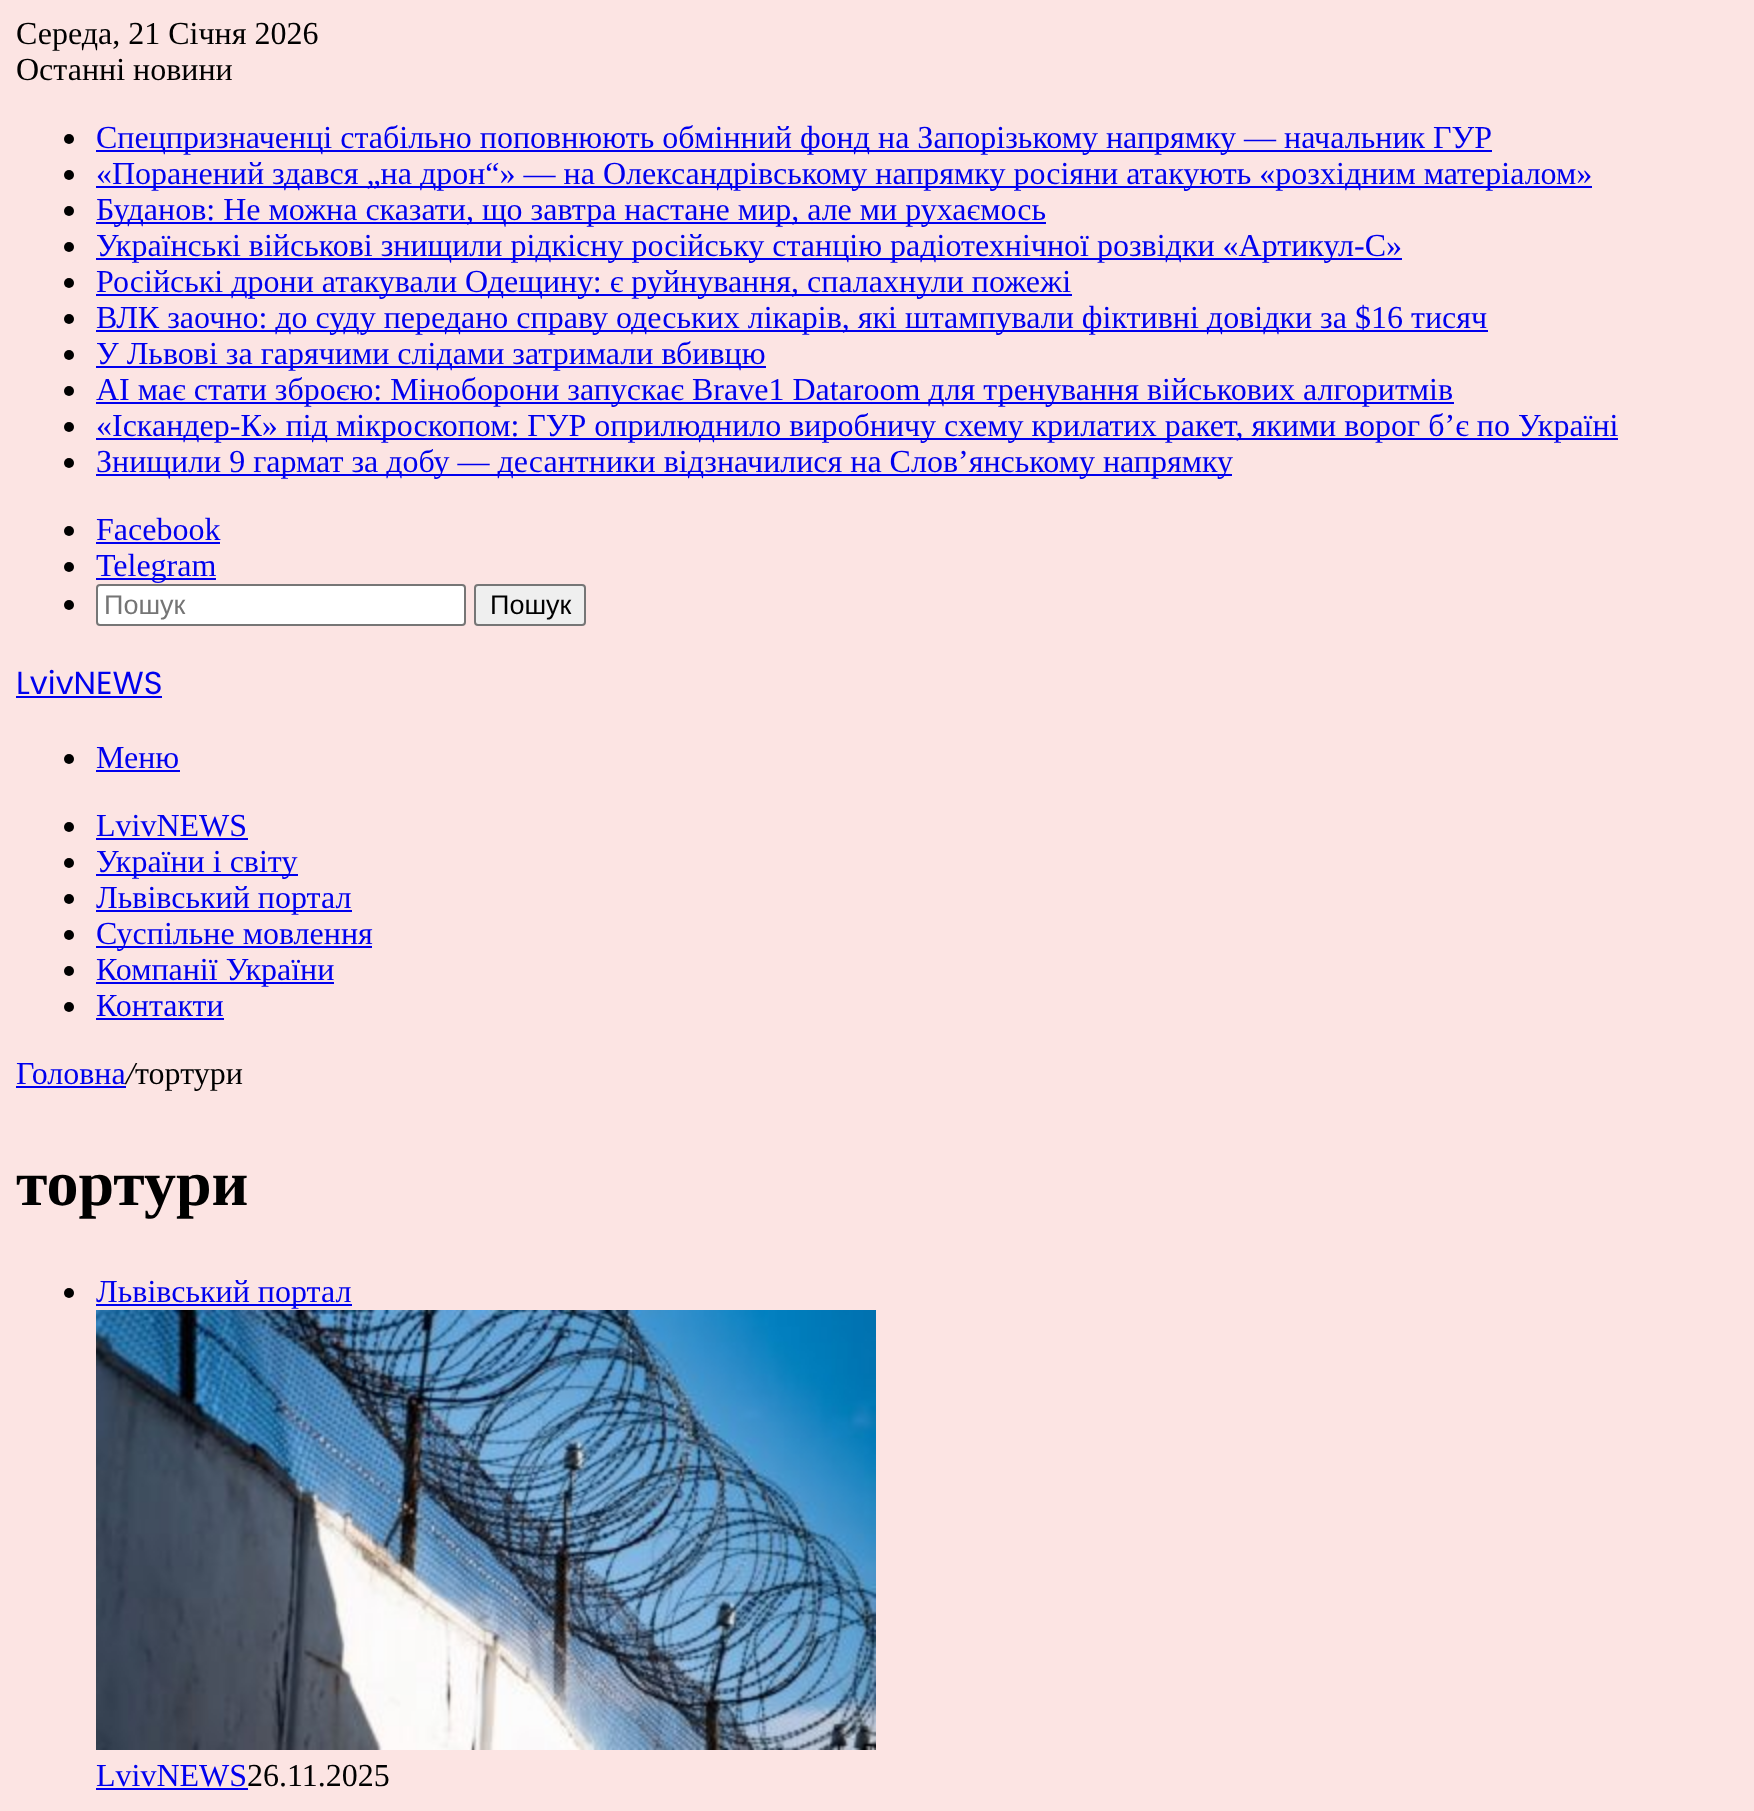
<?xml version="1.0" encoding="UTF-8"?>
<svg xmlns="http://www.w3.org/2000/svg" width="1754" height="1811">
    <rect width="100%" height="100%" fill="#FCE4E3"/>
    <text font-family="Liberation Serif" font-size="32" fill="#000000">
        <tspan x="16" y="44">Середа, 21 Січня 2026</tspan>
        <tspan x="16" y="80">Останні новини</tspan>
    </text>
    <circle cx="69" cy="139" r="5" fill="#000000"/>
    <rect x="96" y="150" width="1396" height="2" fill="#0000EE"/>
    <text x="96" y="148" font-family="Liberation Serif" font-size="32" fill="#0000EE">Спецпризначенці стабільно поповнюють обмінний фонд на Запорізькому напрямку — начальник ГУР</text>
    <circle cx="69" cy="175" r="5" fill="#000000"/>
    <rect x="96" y="186" width="1496" height="2" fill="#0000EE"/>
    <text x="96" y="184" font-family="Liberation Serif" font-size="32" fill="#0000EE">«Поранений здався „на дрон“» — на Олександрівському напрямку росіяни атакують «розхідним матеріалом»</text>
    <circle cx="69" cy="211" r="5" fill="#000000"/>
    <rect x="96" y="222" width="950" height="2" fill="#0000EE"/>
    <text x="96" y="220" font-family="Liberation Serif" font-size="32" fill="#0000EE">Буданов: Не можна сказати, що завтра настане мир, але ми рухаємось</text>
    <circle cx="69" cy="247" r="5" fill="#000000"/>
    <rect x="96" y="258" width="1306" height="2" fill="#0000EE"/>
    <text x="96" y="256" font-family="Liberation Serif" font-size="32" fill="#0000EE">Українські військові знищили рідкісну російську станцію радіотехнічної розвідки «Артикул-С»</text>
    <circle cx="69" cy="283" r="5" fill="#000000"/>
    <rect x="96" y="294" width="976" height="2" fill="#0000EE"/>
    <text x="96" y="292" font-family="Liberation Serif" font-size="32" fill="#0000EE">Російські дрони атакували Одещину: є руйнування, спалахнули пожежі</text>
    <circle cx="69" cy="319" r="5" fill="#000000"/>
    <rect x="96" y="330" width="1392" height="2" fill="#0000EE"/>
    <text x="96" y="328" font-family="Liberation Serif" font-size="32" fill="#0000EE">ВЛК заочно: до суду передано справу одеських лікарів, які штампували фіктивні довідки за $16 тисяч</text>
    <circle cx="69" cy="355" r="5" fill="#000000"/>
    <rect x="96" y="366" width="670" height="2" fill="#0000EE"/>
    <text x="96" y="364" font-family="Liberation Serif" font-size="32" fill="#0000EE">У Львові за гарячими слідами затримали вбивцю</text>
    <circle cx="69" cy="391" r="5" fill="#000000"/>
    <rect x="96" y="402" width="1358" height="2" fill="#0000EE"/>
    <text x="96" y="400" font-family="Liberation Serif" font-size="32" fill="#0000EE">AI має стати зброєю: Міноборони запускає Brave1 Dataroom для тренування військових алгоритмів</text>
    <circle cx="69" cy="427" r="5" fill="#000000"/>
    <rect x="96" y="438" width="1522" height="2" fill="#0000EE"/>
    <text x="96" y="436" font-family="Liberation Serif" font-size="32" fill="#0000EE">«Іскандер-К» під мікроскопом: ГУР оприлюднило виробничу схему крилатих ракет, якими ворог б’є по Україні</text>
    <circle cx="69" cy="463" r="5" fill="#000000"/>
    <rect x="96" y="474" width="1136" height="2" fill="#0000EE"/>
    <text x="96" y="472" font-family="Liberation Serif" font-size="32" fill="#0000EE">Знищили 9 гармат за добу — десантники відзначилися на Слов’янському напрямку</text>
    <circle cx="69" cy="531" r="5" fill="#000000"/>
    <text x="96" y="540" font-family="Liberation Serif" font-size="32" fill="#0000EE">Facebook</text>
    <rect x="96" y="542" width="124" height="2" fill="#0000EE"/>
    <circle cx="69" cy="567" r="5" fill="#000000"/>
    <rect x="96" y="578" width="120" height="2" fill="#0000EE"/>
    <text x="96" y="576" font-family="Liberation Serif" font-size="32" fill="#0000EE">Telegram</text>
    <circle cx="69" cy="605" r="5" fill="#000000"/>
    <rect x="97" y="585" width="368" height="40" rx="3" fill="#FFFFFF" stroke="#767676" stroke-width="2"/>
    <text x="104" y="614" font-family="Liberation Sans" font-size="27" fill="#757575">Пошук</text>
    <rect x="475" y="585" width="110" height="40" rx="3" fill="#EFEFEF" stroke="#767676" stroke-width="2"/>
    <text x="490" y="614" font-family="Liberation Sans" font-size="27" fill="#000000">Пошук</text>
    <text x="16" y="694" font-family="Poppins" font-size="32" fill="#0000EE">LvivNEWS</text>
    <rect x="16" y="696" width="146" height="2" fill="#0000EE"/>
    <circle cx="69" cy="759" r="5" fill="#000000"/>
    <text x="96" y="768" font-family="Liberation Serif" font-size="32" fill="#0000EE">Меню</text>
    <rect x="96" y="770" width="84" height="2" fill="#0000EE"/>
    <circle cx="69" cy="827" r="5" fill="#000000"/>
    <text x="96" y="836" font-family="Liberation Serif" font-size="32" fill="#0000EE">LvivNEWS</text>
    <rect x="96" y="838" width="152" height="2" fill="#0000EE"/>
    <circle cx="69" cy="863" r="5" fill="#000000"/>
    <rect x="96" y="874" width="202" height="2" fill="#0000EE"/>
    <text x="96" y="872" font-family="Liberation Serif" font-size="32" fill="#0000EE">України і світу</text>
    <circle cx="69" cy="899" r="5" fill="#000000"/>
    <rect x="96" y="910" width="256" height="2" fill="#0000EE"/>
    <text x="96" y="908" font-family="Liberation Serif" font-size="32" fill="#0000EE">Львівський портал</text>
    <circle cx="69" cy="935" r="5" fill="#000000"/>
    <rect x="96" y="946" width="276" height="2" fill="#0000EE"/>
    <text x="96" y="944" font-family="Liberation Serif" font-size="32" fill="#0000EE">Суспільне мовлення</text>
    <circle cx="69" cy="971" r="5" fill="#000000"/>
    <rect x="96" y="982" width="238" height="2" fill="#0000EE"/>
    <text x="96" y="980" font-family="Liberation Serif" font-size="32" fill="#0000EE">Компанії України</text>
    <circle cx="69" cy="1007" r="5" fill="#000000"/>
    <text x="96" y="1016" font-family="Liberation Serif" font-size="32" fill="#0000EE">Контакти</text>
    <rect x="96" y="1018" width="128" height="2" fill="#0000EE"/>
    <text x="16" y="1084" font-family="Liberation Serif" font-size="32" fill="#0000EE">Головна</text>
    <rect x="16" y="1086" width="110" height="2" fill="#0000EE"/>
    <text x="126" y="1084" font-family="Liberation Serif" font-size="32" font-style="italic" fill="#000000">/</text>
    <text x="135" y="1084" font-family="Liberation Serif" font-size="32" fill="#000000">тортури</text>
    <text x="16" y="1205" font-family="Liberation Serif" font-size="64" font-weight="700" fill="#000000">тортури</text>
    <circle cx="69" cy="1293" r="5" fill="#000000"/>
    <rect x="96" y="1304" width="256" height="2" fill="#0000EE"/>
    <text x="96" y="1302" font-family="Liberation Serif" font-size="32" fill="#0000EE">Львівський портал</text>
    <image x="96" y="1310" width="780" height="440" href="img_01.png"/>
    <text x="96" y="1786" font-family="Liberation Serif" font-size="32" fill="#0000EE">LvivNEWS</text>
    <rect x="96" y="1788" width="152" height="2" fill="#0000EE"/>
    <text x="247" y="1786" font-family="Liberation Serif" font-size="32" fill="#000000">26.11.2025</text>
</svg>
